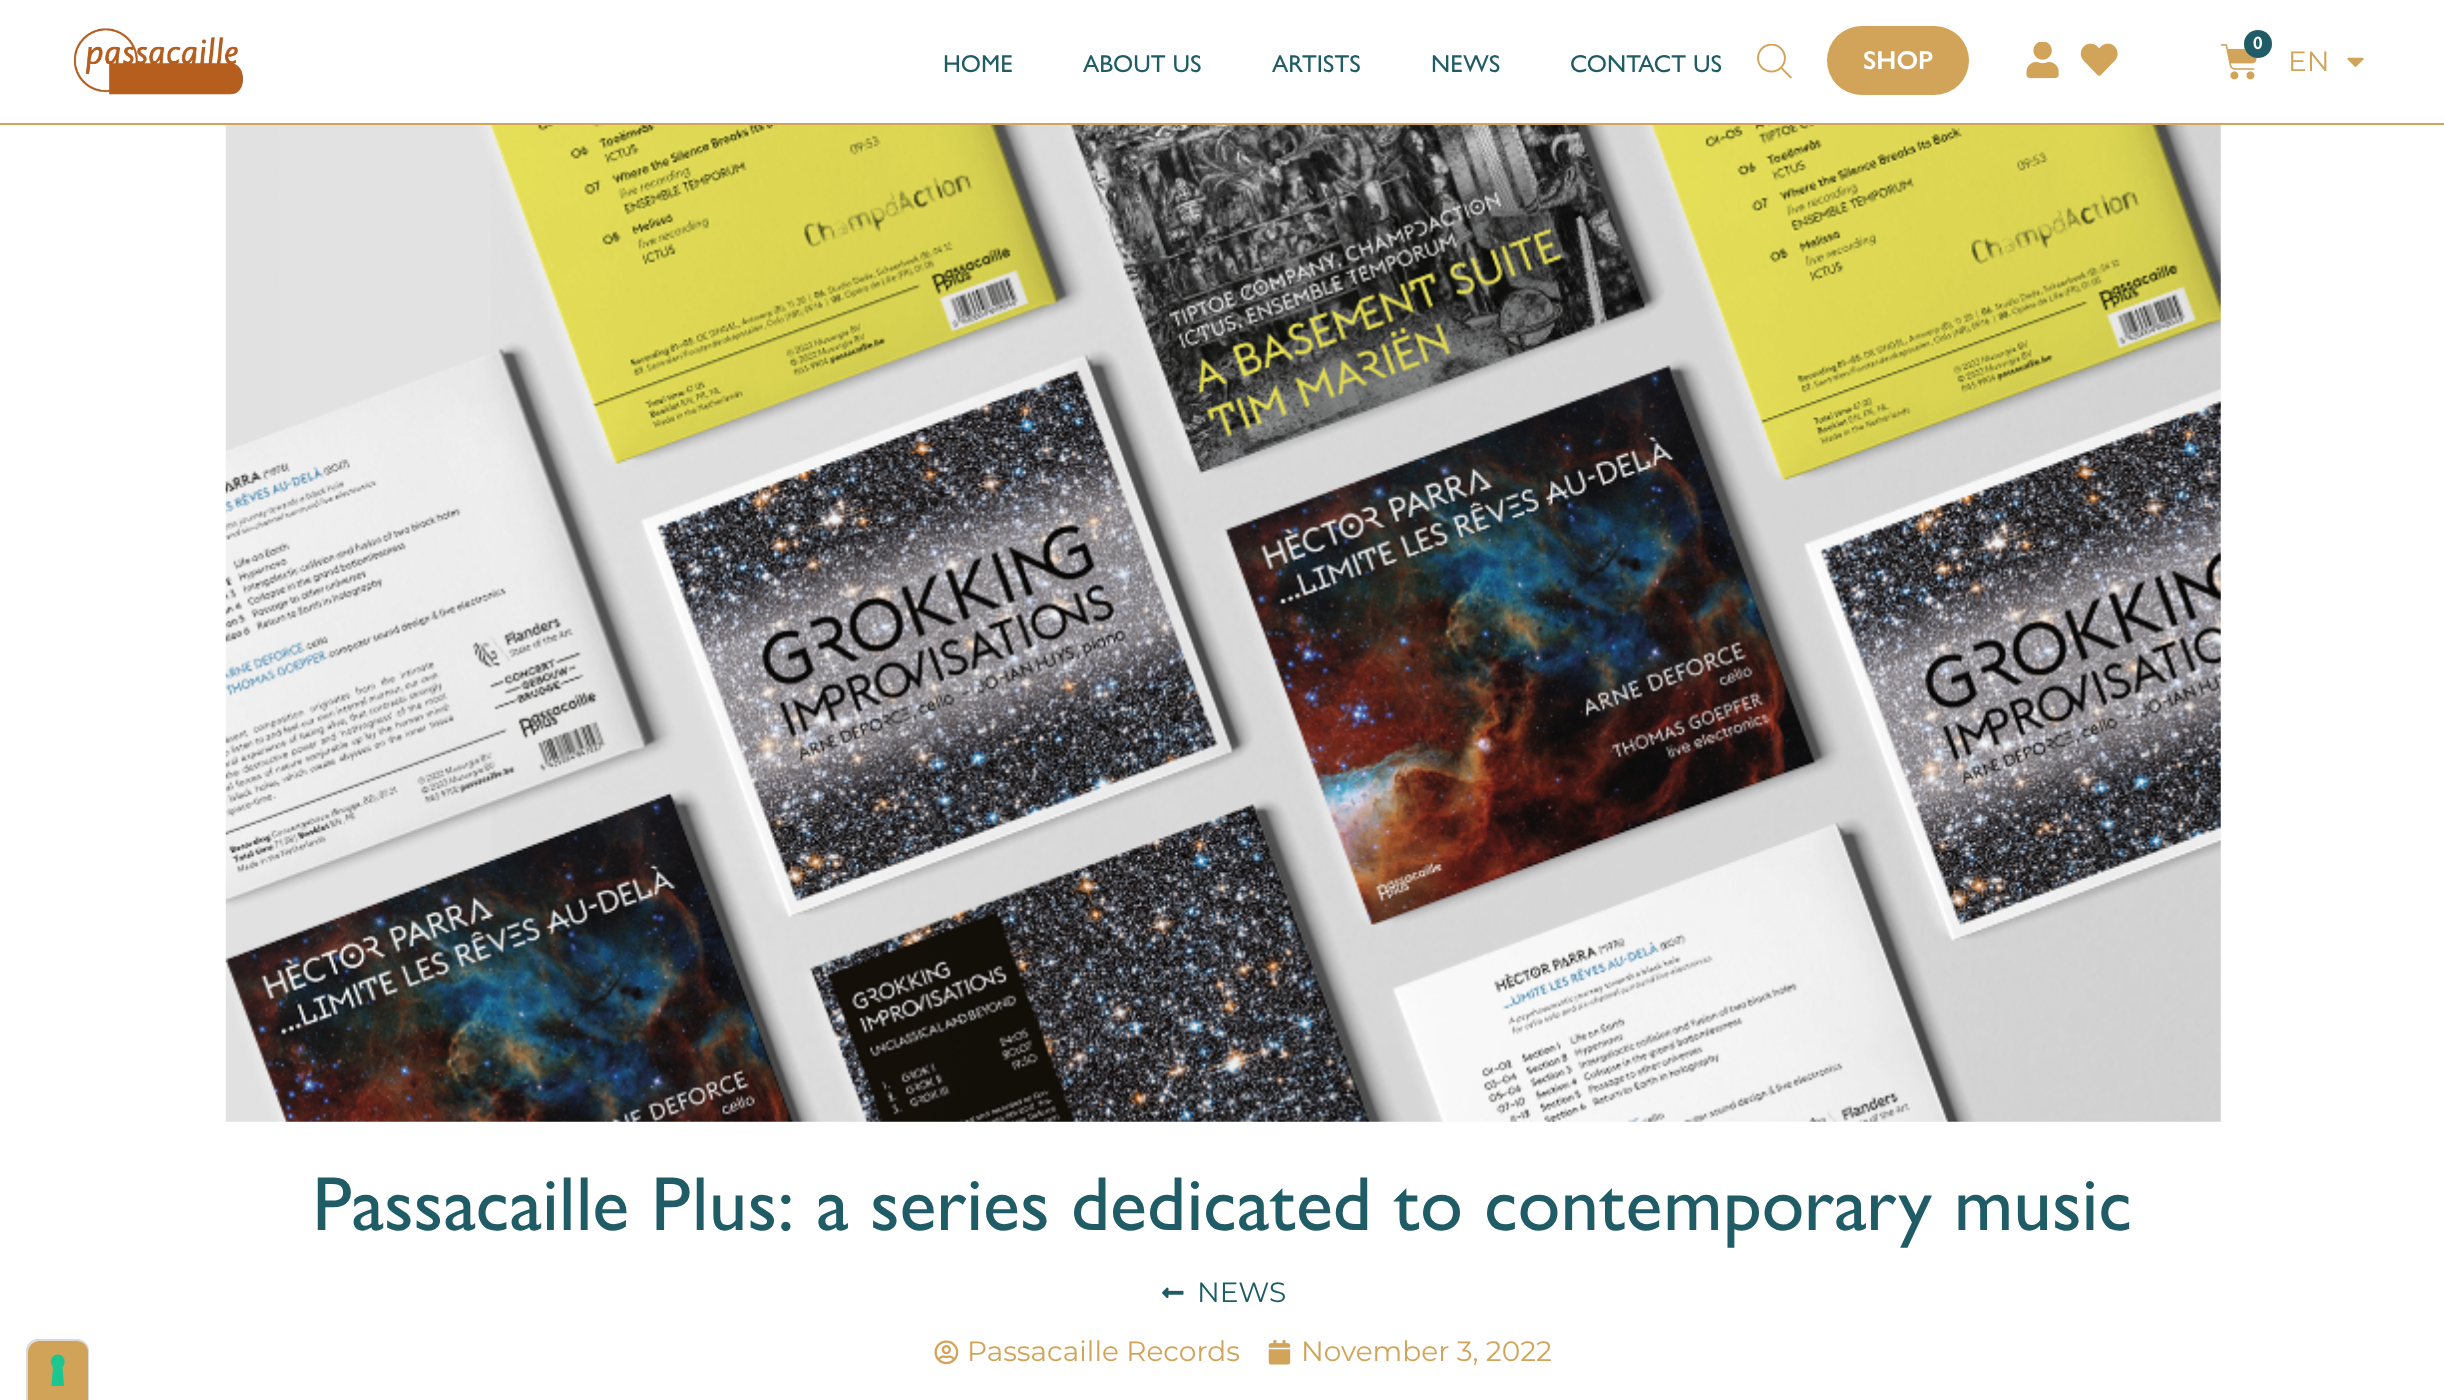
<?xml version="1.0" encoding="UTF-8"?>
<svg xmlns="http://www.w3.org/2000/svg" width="2444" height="1400">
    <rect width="100%" height="100%" fill="#FFFFFF"/>
    <rect x="0" y="123" width="2444" height="2" fill="#D1A459"/>
    <image x="74" y="28" width="169" height="67" href="img_01.png"/>
    <text x="943" y="72" font-family="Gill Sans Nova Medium" font-size="24.5" font-weight="500" fill="#1F5C65">HOME</text>
    <text x="1083" y="72" font-family="Gill Sans Nova Medium" font-size="24.5" font-weight="500" fill="#1F5C65">ABOUT US</text>
    <text x="1272" y="72" font-family="Gill Sans Nova Medium" font-size="24.5" font-weight="500" fill="#1F5C65">ARTISTS</text>
    <text x="1431" y="72" font-family="Gill Sans Nova Medium" font-size="24.5" font-weight="500" fill="#1F5C65">NEWS</text>
    <text x="1570" y="72" font-family="Gill Sans Nova Medium" font-size="24.5" font-weight="500" fill="#1F5C65">CONTACT US</text>
    <image x="1757" y="44" width="35" height="35" href="img_02.png"/>
    <rect x="1827" y="26" width="142" height="69" rx="34.5" fill="#D1A459"/>
    <text x="1863" y="69" font-family="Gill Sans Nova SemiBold" font-size="26" font-weight="600" fill="#FFFFFF">SHOP</text>
    <image x="2026" y="42" width="33" height="37" href="img_03.png"/>
    <image x="2080" y="43" width="38" height="33" href="img_04.png"/>
    <image x="2220" y="44" width="37" height="36" href="img_05.png"/>
    <circle cx="2258" cy="44" r="14" fill="#1F5C65"/>
    <text x="2253" y="49" font-family="Gill Sans Nova SemiBold" font-size="18" font-weight="600" fill="#FFFFFF">0</text>
    <text x="2288" y="71" font-family="Montserrat" font-size="28" fill="#D1A459">EN</text>
    <image x="2347" y="57" width="17" height="10" href="img_06.png"/>
    <path d="M 38 1340 H 77 C 83 1340 88 1345 88 1351 V 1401 H 27 V 1351 C 27 1345 32 1340 38 1340 Z" fill="none" stroke="#D9D9D9" stroke-width="2"/>
    <path d="M 39 1341 H 77 C 83 1341 88 1346 88 1352 V 1400 H 28 V 1352 C 28 1346 33 1341 39 1341 Z" fill="#D0A359"/>
    <path d="M 58 1354.5 C 64 1354.5 67 1362.5 62.5 1367 L 64 1386 H 51.5 L 53 1367 C 48.5 1362.5 51.5 1354.5 58 1354.5 Z" fill="#1CC691" fill-rule="evenodd"/>
    <image x="225" y="125" width="1996" height="997" href="img_07.png"/>
    <text x="312" y="1230" font-family="Gill Sans Nova Medium" font-size="77" font-weight="500" fill="#1F5C65">Passacaille Plus: a series dedicated to contemporary music</text>
    <image x="1162" y="1287" width="22" height="11" href="img_08.png"/>
    <text x="1197" y="1302" font-family="Montserrat" font-size="28" fill="#1F5C65">NEWS</text>
    <image x="934" y="1340" width="25" height="25" href="img_09.png"/>
    <text x="967" y="1361" font-family="Montserrat" font-size="28" fill="#D1A459">Passacaille Records</text>
    <image x="1268" y="1340" width="23" height="25" href="img_10.png"/>
    <text x="1301" y="1361" font-family="Montserrat" font-size="28" fill="#D1A459">November 3, 2022</text>
</svg>
